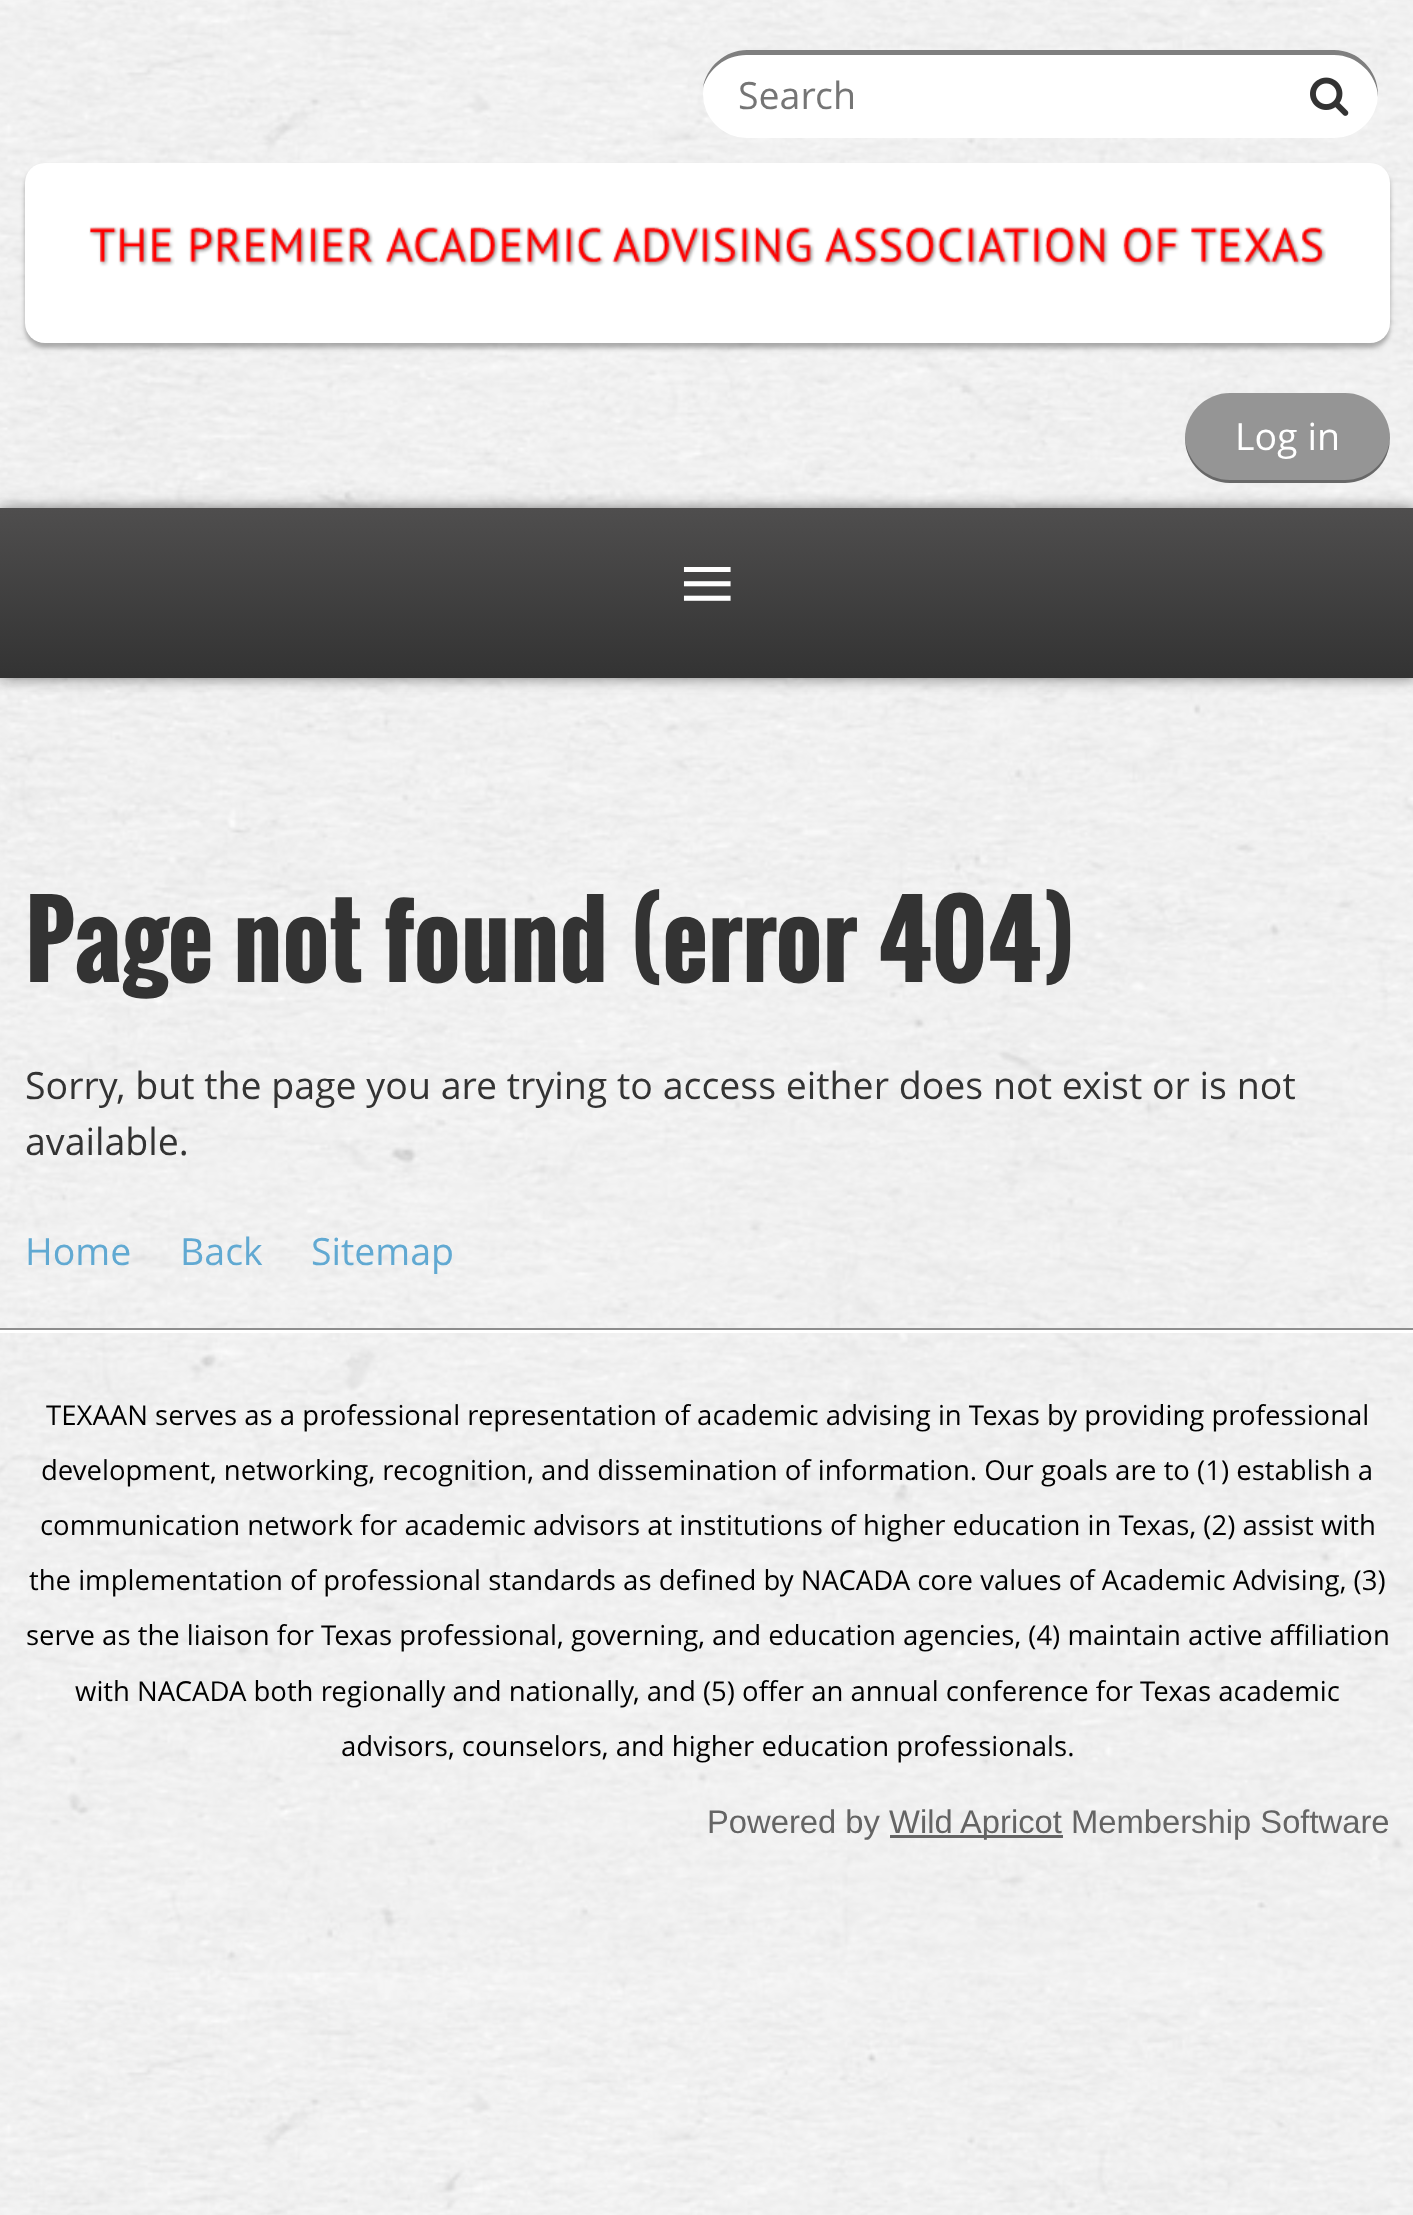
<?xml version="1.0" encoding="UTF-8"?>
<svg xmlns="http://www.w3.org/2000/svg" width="1413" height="2215">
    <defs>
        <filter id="blur1" x="-50%" y="-200%" width="200%" height="500%"><feGaussianBlur stdDeviation="2.5"/></filter>
        <filter id="blur2" x="-50%" y="-200%" width="200%" height="500%"><feGaussianBlur stdDeviation="7.5"/></filter>
        <linearGradient id="g1" gradientUnits="userSpaceOnUse" x1="708" y1="507" x2="708" y2="678"><stop offset="0" stop-color="#4F4E4E"/><stop offset="1" stop-color="#333333"/></linearGradient>
    </defs>
    <rect width="100%" height="100%" fill="#FFFFFF"/>
    <image x="0" y="0" width="1413" height="2215" href="img_01.png"/>
    <rect x="703" y="50" width="675" height="88" rx="44" fill="#FFFFFF"/>
    <path d="M 746 55 H 1334 C 1357 55 1377 74 1378 97 V 94 C 1378 70 1358 50 1334 50 H 747 C 725 50 706 67 703 88 C 708 69 726 55 746 55 Z" fill="#000000" fill-opacity="0.5"/>
    <text x="738" y="109" font-family="Open Sans" font-size="37.5" fill="#757575">Search</text>
    <image x="1310" y="77" width="39" height="39" href="img_02.png"/>
    <rect x="25" y="168" width="1365" height="180" rx="20" fill="#000000" fill-opacity="0.3" filter="url(#blur1)"/>
    <rect x="25" y="163" width="1365" height="180" rx="20" fill="#FFFFFF"/>
    <image x="89" y="226" width="1237" height="41" href="img_03.png"/>
    <rect x="1185" y="393" width="205" height="90" rx="45" fill="#959595"/>
    <path d="M 1185 437 V 438 C 1185 463 1205 483 1230 483 H 1345 C 1370 483 1390 463 1390 438 V 437 C 1389 461 1369 480 1345 480 H 1230 C 1206 480 1186 461 1185 437 Z" fill="#000000" fill-opacity="0.3"/>
    <text x="1235" y="450" font-family="Open Sans" font-size="37.5" fill="#FFFFFF">Log in</text>
    <rect x="0" y="508" width="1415" height="170" fill="#000000" fill-opacity="0.5" filter="url(#blur2)"/>
    <rect x="0" y="508" width="1413" height="170" fill="url(#g1)"/>
    <text x="679" y="617" font-family="Liberation Serif" font-size="100" fill="#FFFFFF">≡</text>
    <text x="25" y="982" font-family="Oswald" font-size="100" font-weight="700" fill="#333333">Page not found (error 404)</text>
    <text font-family="Open Sans" font-size="37.5" fill="#333333">
        <tspan x="25" y="1099">Sorry, but the page you are trying to access either does not exist or is not</tspan>
        <tspan x="25" y="1155">available.</tspan>
    </text>
    <text x="25" y="1265" font-family="Open Sans" font-size="37.5" fill="#61A9D2">Home</text>
    <text x="180" y="1265" font-family="Open Sans" font-size="37.5" fill="#61A9D2">Back</text>
    <text x="311" y="1265" font-family="Open Sans" font-size="37.5" fill="#61A9D2">Sitemap</text>
    <rect x="0" y="1328" width="1413" height="2" fill="#8D8D8D"/>
    <rect x="0" y="1330" width="1413" height="3" fill="#FFFFFF"/>
    <text x="46" y="1425" font-family="Open Sans" font-size="27.5" fill="#000000">TEXAAN serves as a professional representation of academic advising in Texas by providing professional</text>
    <text x="41" y="1480" font-family="Open Sans" font-size="27.5" fill="#000000">development, networking, recognition, and dissemination of information. Our goals are to (1) establish a</text>
    <text x="40" y="1535" font-family="Open Sans" font-size="27.5" fill="#000000">communication network for academic advisors at institutions of higher education in Texas, (2) assist with</text>
    <text x="29" y="1590" font-family="Open Sans" font-size="27.5" fill="#000000">the implementation of professional standards as defined by NACADA core values of Academic Advising, (3)</text>
    <text x="26" y="1645" font-family="Open Sans" font-size="27.5" fill="#000000">serve as the liaison for Texas professional, governing, and education agencies, (4) maintain active affiliation</text>
    <text x="75" y="1701" font-family="Open Sans" font-size="27.5" fill="#000000">with NACADA both regionally and nationally, and (5) offer an annual conference for Texas academic</text>
    <text x="341" y="1756" font-family="Open Sans" font-size="27.5" fill="#000000">advisors, counselors, and higher education professionals.</text>
    <text x="707" y="1833" font-family="Liberation Sans" font-size="32.75" fill="#646464">Powered by</text>
    <rect x="890" y="1835" width="173" height="3" fill="#646464"/>
    <text x="889" y="1833" font-family="Liberation Sans" font-size="32.75" fill="#646464">Wild Apricot Membership Software</text>
</svg>
